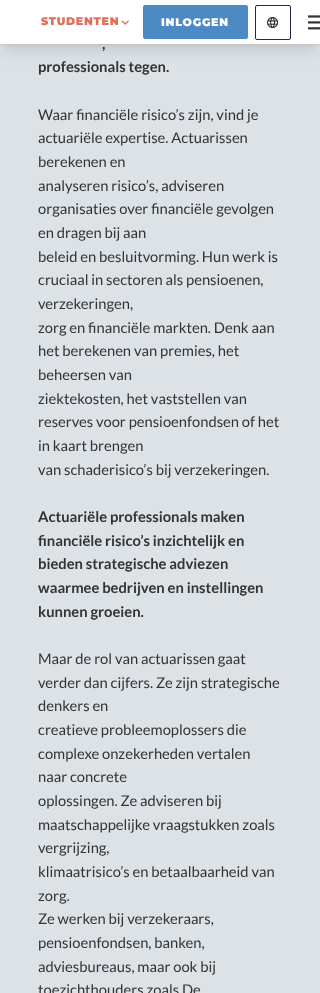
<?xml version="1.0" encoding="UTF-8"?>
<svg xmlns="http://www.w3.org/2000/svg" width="320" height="993">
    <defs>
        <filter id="blur1" x="-50%" y="-200%" width="200%" height="500%"><feGaussianBlur stdDeviation="3"/></filter>
        <filter id="blur2" x="-50%" y="-200%" width="200%" height="500%"><feGaussianBlur stdDeviation="7.5"/></filter>
    </defs>
    <rect width="100%" height="100%" fill="#DDE2E7"/>
    <rect x="4" y="8" width="312" height="36" fill="#000000" fill-opacity="0.1" filter="url(#blur1)"/>
    <rect x="3" y="13" width="314" height="38" fill="#000000" fill-opacity="0.1" filter="url(#blur2)"/>
    <rect x="0" y="0" width="320" height="44" fill="#FFFFFF"/>
    <text x="41" y="25" font-family="Montserrat" font-size="11" font-weight="100" letter-spacing="0.75" fill="#E16F59">STUDENTEN</text>
    <image x="121" y="20" width="8" height="5" href="img_01.png"/>
    <rect x="144" y="6" width="103" height="32" rx="1" fill="#4D8AC5" stroke="#4D8AC5" stroke-width="2"/>
    <text x="161" y="26" font-family="Montserrat" font-size="11" font-weight="100" letter-spacing="0.75" fill="#FFFFFF">INLOGGEN</text>
    <rect x="255.5" y="5.5" width="35" height="34" rx="1.5" fill="none" stroke="#27245D"/>
    <image x="267" y="17" width="11" height="11" href="img_02.png"/>
    <image x="308" y="15" width="12" height="15" href="img_03.png"/>
    <text x="102" y="49" font-family="Lato" font-size="14.75" font-weight="700" fill="#333333">,</text>
    <text x="38" y="72" font-family="Lato" font-size="14.75" font-weight="700" fill="#333333">professionals tegen.</text>
    <text font-family="Lato" font-size="14.75" fill="#333333">
        <tspan x="38" y="120">Waar financiële risico’s zijn, vind je</tspan>
        <tspan x="38" y="143">actuariële expertise. Actuarissen</tspan>
        <tspan x="38" y="167">berekenen en</tspan>
        <tspan x="38" y="191">analyseren risico’s, adviseren</tspan>
        <tspan x="38" y="214">organisaties over financiële gevolgen</tspan>
        <tspan x="38" y="238">en dragen bij aan</tspan>
        <tspan x="38" y="262">beleid en besluitvorming. Hun werk is</tspan>
        <tspan x="38" y="285">cruciaal in sectoren als pensioenen,</tspan>
        <tspan x="38" y="309">verzekeringen,</tspan>
        <tspan x="38" y="333">zorg en financiële markten. Denk aan</tspan>
        <tspan x="38" y="356">het berekenen van premies, het</tspan>
        <tspan x="38" y="380">beheersen van</tspan>
        <tspan x="38" y="404">ziektekosten, het vaststellen van</tspan>
        <tspan x="38" y="427">reserves voor pensioenfondsen of het</tspan>
        <tspan x="38" y="451">in kaart brengen</tspan>
        <tspan x="38" y="475">van schaderisico’s bij verzekeringen.</tspan>
    </text>
    <text font-family="Lato" font-size="14.75" font-weight="700" fill="#333333">
        <tspan x="38" y="522">Actuariële professionals maken</tspan>
        <tspan x="38" y="546">financiële risico’s inzichtelijk en</tspan>
        <tspan x="38" y="569">bieden strategische adviezen</tspan>
        <tspan x="38" y="593">waarmee bedrijven en instellingen</tspan>
        <tspan x="38" y="617">kunnen groeien.</tspan>
    </text>
    <text font-family="Lato" font-size="14.75" fill="#333333">
        <tspan x="38" y="664">Maar de rol van actuarissen gaat</tspan>
        <tspan x="38" y="688">verder dan cijfers. Ze zijn strategische</tspan>
        <tspan x="38" y="711">denkers en</tspan>
        <tspan x="38" y="735">creatieve probleemoplossers die</tspan>
        <tspan x="38" y="759">complexe onzekerheden vertalen</tspan>
        <tspan x="38" y="782">naar concrete</tspan>
        <tspan x="38" y="806">oplossingen. Ze adviseren bij</tspan>
        <tspan x="38" y="830">maatschappelijke vraagstukken zoals</tspan>
        <tspan x="38" y="853">vergrijzing,</tspan>
        <tspan x="38" y="877">klimaatrisico’s en betaalbaarheid van</tspan>
        <tspan x="38" y="901">zorg.</tspan>
        <tspan x="38" y="924">Ze werken bij verzekeraars,</tspan>
        <tspan x="38" y="948">pensioenfondsen, banken,</tspan>
        <tspan x="38" y="972">adviesbureaus, maar ook bij</tspan>
        <tspan x="38" y="995">toezichthouders zoals De</tspan>
    </text>
</svg>
